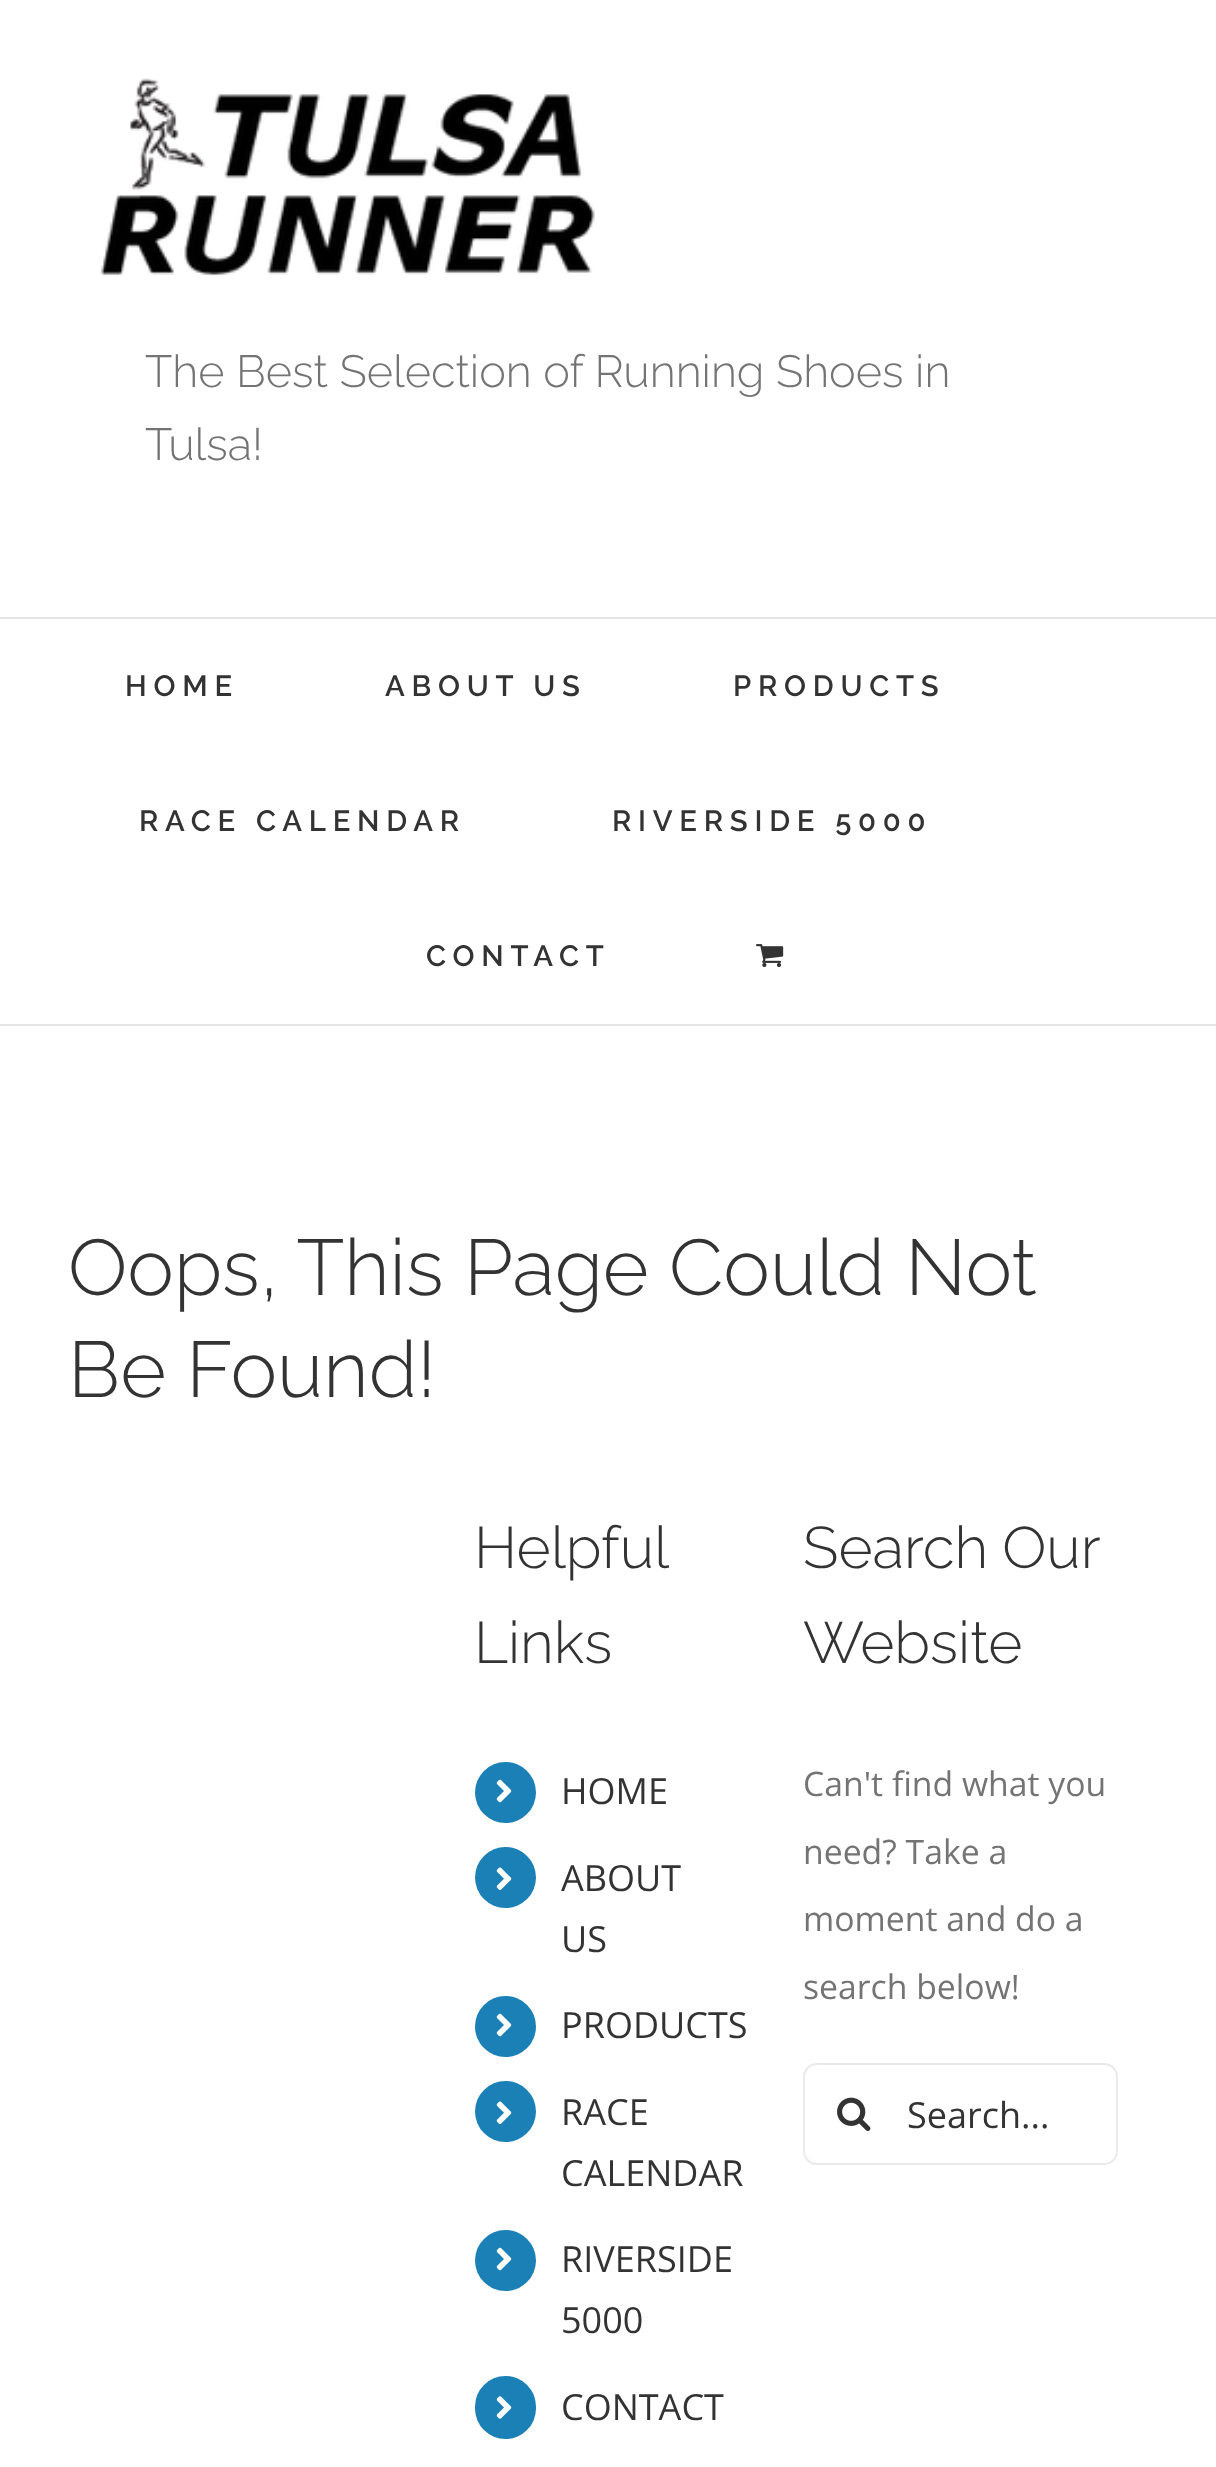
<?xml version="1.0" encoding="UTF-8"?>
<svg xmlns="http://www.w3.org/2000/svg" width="1216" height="2467">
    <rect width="100%" height="100%" fill="#FFFFFF"/>
    <rect x="0" y="617" width="1216" height="2" fill="#E5E5E5"/>
    <image x="100" y="78" width="495" height="198" href="img_01.png"/>
    <text font-family="Raleway" font-size="45" font-weight="300" fill="#747474">
        <tspan x="145" y="387">The Best Selection of Running Shoes in</tspan>
        <tspan x="145" y="460">Tulsa!</tspan>
    </text>
    <rect x="0" y="1024" width="1216" height="2" fill="#E5E5E5"/>
    <text x="125" y="696" font-family="Raleway" font-size="29.25" font-weight="600" letter-spacing="6.75" fill="#333333">HOME</text>
    <text x="385" y="696" font-family="Raleway" font-size="29.25" font-weight="600" letter-spacing="6.75" fill="#333333">ABOUT US</text>
    <text x="733" y="696" font-family="Raleway" font-size="29.25" font-weight="600" letter-spacing="6.75" fill="#333333">PRODUCTS</text>
    <text x="139" y="831" font-family="Raleway" font-size="29.25" font-weight="600" letter-spacing="6.75" fill="#333333">RACE CALENDAR</text>
    <text x="612" y="831" font-family="Raleway" font-size="29.25" font-weight="600" letter-spacing="6.75" fill="#333333">RIVERSIDE 5000</text>
    <text x="426" y="966" font-family="Raleway" font-size="29.25" font-weight="600" letter-spacing="6.75" fill="#333333">CONTACT</text>
    <image x="756" y="944" width="28" height="24" href="img_02.png"/>
    <text font-family="Raleway" font-size="78.75" font-weight="300" fill="#333333">
        <tspan x="68" y="1295">Oops, This Page Could Not</tspan>
        <tspan x="68" y="1397">Be Found!</tspan>
    </text>
    <text font-family="Raleway" font-size="58.5" font-weight="300" fill="#333333">
        <tspan x="474" y="1568">Helpful</tspan>
        <tspan x="474" y="1663">Links</tspan>
    </text>
    <circle cx="505.5" cy="1792.5" r="30.5" fill="#1A80B6"/>
    <image x="496" y="1779" width="16" height="24" href="img_03.png"/>
    <text x="561" y="1804" font-family="Open Sans" font-size="36" fill="#333333">HOME</text>
    <circle cx="505.5" cy="1877.5" r="30.5" fill="#1A80B6"/>
    <image x="496" y="1867" width="16" height="23" href="img_04.png"/>
    <text font-family="Open Sans" font-size="36" fill="#333333">
        <tspan x="561" y="1891">ABOUT</tspan>
        <tspan x="561" y="1952">US</tspan>
    </text>
    <circle cx="505.5" cy="2026.5" r="30.5" fill="#1A80B6"/>
    <image x="496" y="2013" width="16" height="24" href="img_03.png"/>
    <text x="561" y="2038" font-family="Open Sans" font-size="36" fill="#333333">PRODUCTS</text>
    <circle cx="505.5" cy="2111.5" r="30.5" fill="#1A80B6"/>
    <image x="496" y="2101" width="16" height="23" href="img_04.png"/>
    <text font-family="Open Sans" font-size="36" fill="#333333">
        <tspan x="561" y="2125">RACE</tspan>
        <tspan x="561" y="2186">CALENDAR</tspan>
    </text>
    <circle cx="505.5" cy="2260.5" r="30.5" fill="#1A80B6"/>
    <image x="496" y="2247" width="16" height="24" href="img_03.png"/>
    <text font-family="Open Sans" font-size="36" fill="#333333">
        <tspan x="561" y="2272">RIVERSIDE</tspan>
        <tspan x="561" y="2333">5000</tspan>
    </text>
    <rect x="475" y="2376" width="61" height="63" rx="30.5" fill="#1A80B6"/>
    <image x="496" y="2396" width="16" height="23" href="img_05.png"/>
    <text x="561" y="2420" font-family="Open Sans" font-size="36" fill="#333333">CONTACT</text>
    <text font-family="Raleway" font-size="58.5" font-weight="300" fill="#333333">
        <tspan x="803" y="1568" word-spacing="-1">Search Our</tspan>
        <tspan x="803" y="1663">Website</tspan>
    </text>
    <text x="803" y="1796" font-family="Open Sans" font-size="33.75" fill="#747474">Can't find what you</text>
    <text font-family="Open Sans" font-size="33.75" fill="#747474">
        <tspan x="803" y="1864">need? Take a</tspan>
        <tspan x="803" y="1931">moment and do a</tspan>
    </text>
    <text x="803" y="1999" font-family="Open Sans" font-size="33.75" fill="#747474">search below!</text>
    <rect x="804" y="2064" width="313" height="100" rx="13" fill="none" stroke="#EAEAEA" stroke-width="2"/>
    <image x="837" y="2097" width="34" height="34" href="img_06.png"/>
    <text x="907" y="2128" font-family="Open Sans" font-size="36" fill="#333333">Search...</text>
</svg>
